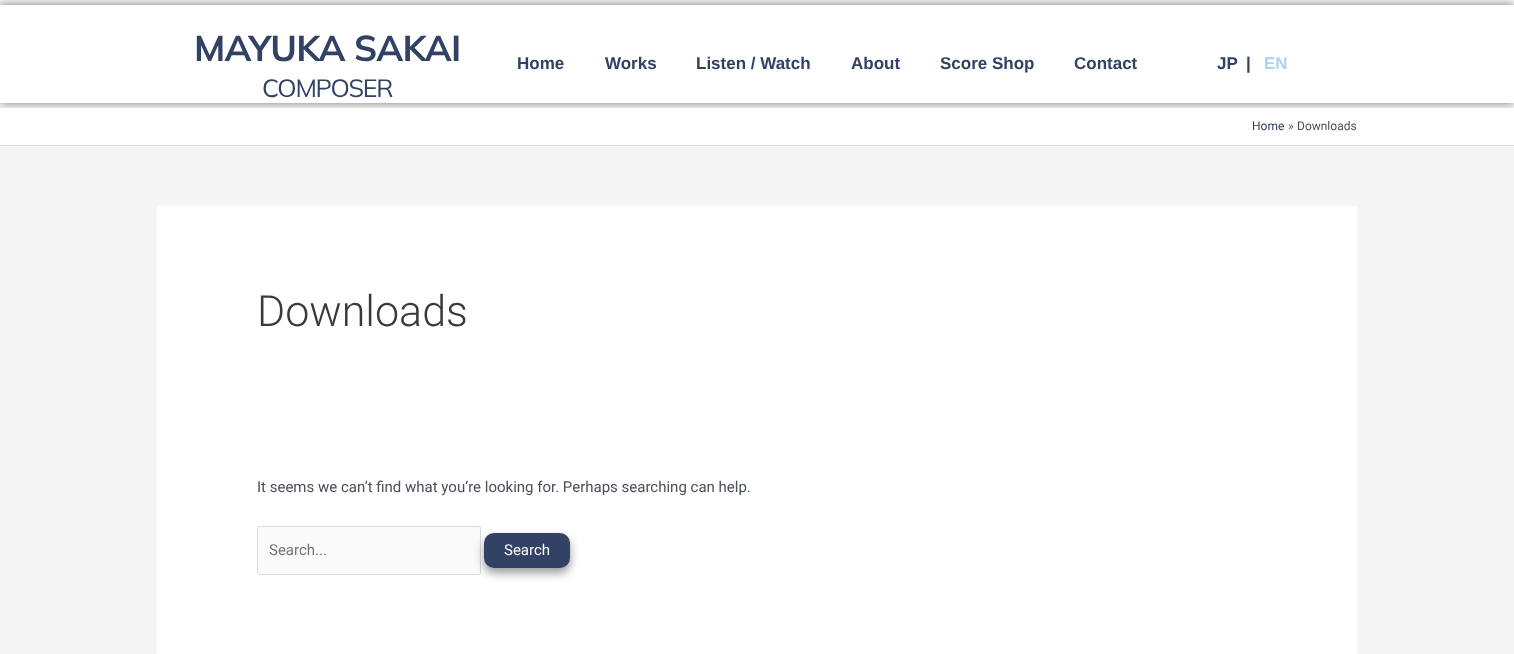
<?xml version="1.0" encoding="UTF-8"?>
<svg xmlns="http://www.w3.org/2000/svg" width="1514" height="654">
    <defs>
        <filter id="blur1" x="-50%" y="-200%" width="200%" height="500%"><feGaussianBlur stdDeviation="5"/></filter>
    </defs>
    <rect width="100%" height="100%" fill="#F5F5F5"/>
    <rect x="0" y="5" width="1514" height="98" fill="#000000" fill-opacity="0.5" filter="url(#blur1)"/>
    <rect x="0" y="5" width="1514" height="98" fill="#FFFFFF"/>
    <text x="194" y="61" font-family="Mulish" font-size="36" font-weight="700" letter-spacing="-0.75" fill="#314264">MAYUKA SAKAI</text>
    <text x="262" y="97" font-family="Mulish" font-size="25" letter-spacing="-1.25" fill="#314264">COMPOSER</text>
    <text x="517" y="69" font-family="Liberation Sans" font-size="17" font-weight="700" fill="#314264">Home</text>
    <text x="605" y="69" font-family="Liberation Sans" font-size="17" font-weight="700" fill="#314264">Works</text>
    <text x="696" y="69" font-family="Liberation Sans" font-size="17" font-weight="700" fill="#314264">Listen / Watch</text>
    <text x="851" y="69" font-family="Liberation Sans" font-size="17" font-weight="700" fill="#314264">About</text>
    <text x="940" y="69" font-family="Liberation Sans" font-size="17" font-weight="700" fill="#314264">Score Shop</text>
    <text x="1074" y="69" font-family="Liberation Sans" font-size="17" font-weight="700" fill="#314264">Contact</text>
    <text x="1217" y="69" font-family="Liberation Sans" font-size="17" font-weight="700" fill="#314264">JP</text>
    <text x="1246" y="69" font-family="Liberation Sans" font-size="17" font-weight="700" fill="#314264">|</text>
    <text x="1264" y="69" font-family="Liberation Sans" font-size="17" font-weight="700" fill="#ABD3F2">EN</text>
    <rect x="0" y="108" width="1514" height="37" fill="#FFFFFF"/>
    <rect x="0" y="145" width="1514" height="1" fill="#DDDDDD"/>
    <text x="1252" y="130" font-family="Roboto" font-size="12" fill="#314264">Home</text>
    <text x="1288" y="130" font-family="Roboto" font-size="12" fill="#4B4F58">»</text>
    <text x="1297" y="130" font-family="Roboto" font-size="12" fill="#4B4F58">Downloads</text>
    <rect x="157" y="206" width="1200" height="448" fill="#FFFFFF"/>
    <text x="257" y="326" font-family="Roboto" font-size="43" font-weight="300" fill="#3A3A3A">Downloads</text>
    <text x="257" y="492" font-family="Roboto" font-size="15" fill="#4B4F58">It seems we can’t find what you’re looking for. Perhaps searching can help.</text>
    <rect x="257.5" y="526.5" width="223" height="48" rx="1.5" fill="#FAFAFA" stroke="#DDDDDD"/>
    <text x="269" y="555" font-family="Roboto" font-size="15" fill="#757575">Search...</text>
    <rect x="484" y="538" width="86" height="35" rx="10" fill="#000000" fill-opacity="0.4" filter="url(#blur1)"/>
    <rect x="484" y="533" width="86" height="35" rx="10" fill="#314264"/>
    <text x="504" y="555" font-family="Roboto" font-size="15" fill="#FFFBFB">Search</text>
</svg>
